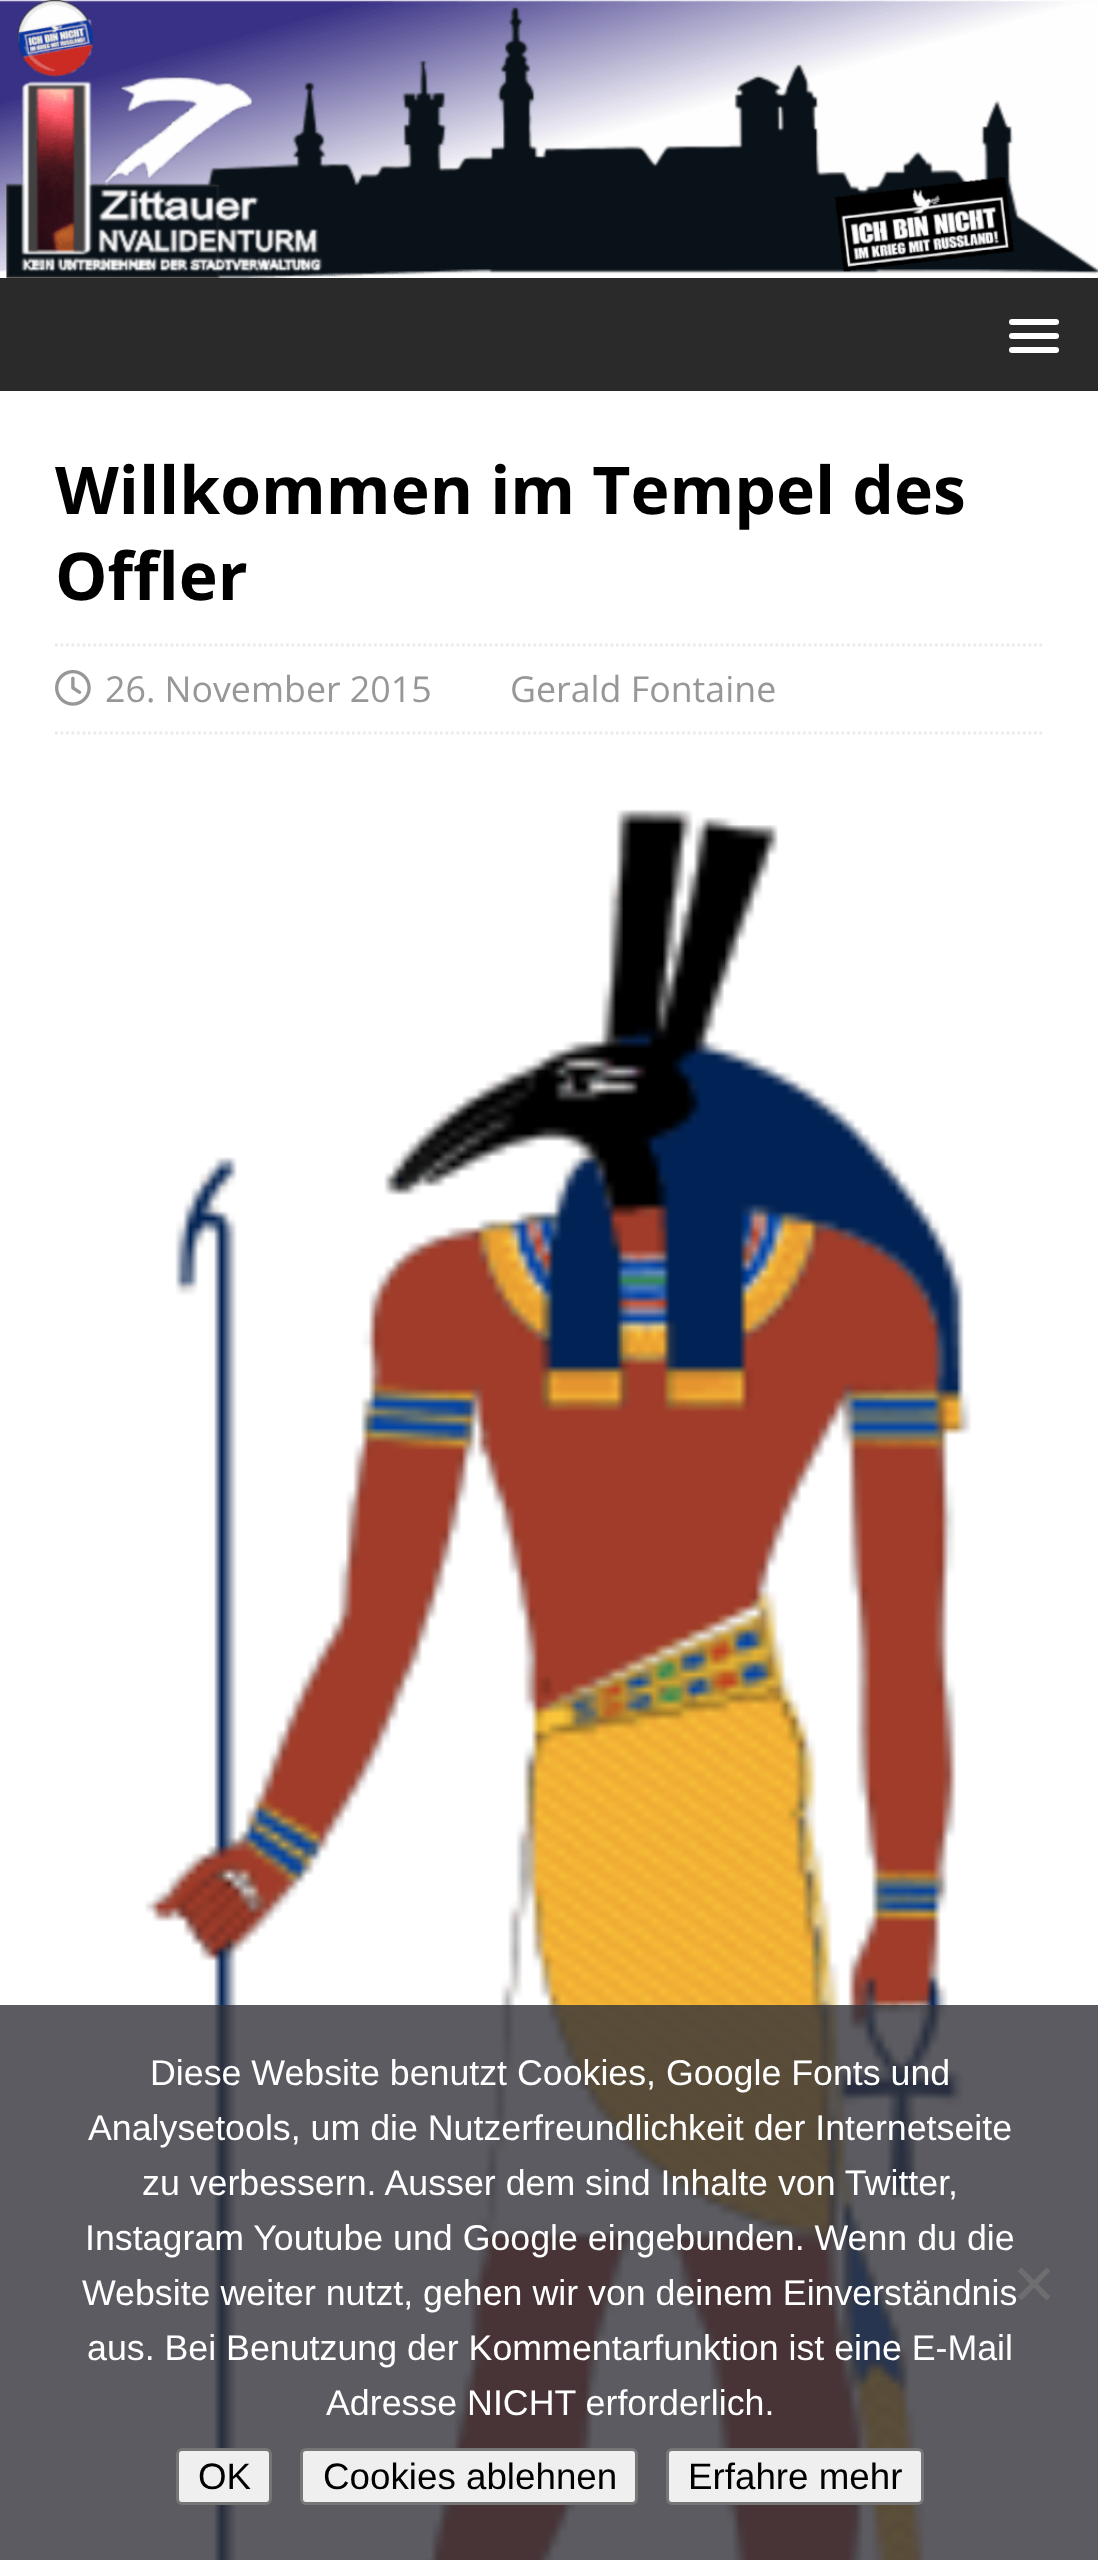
<?xml version="1.0" encoding="UTF-8"?>
<svg xmlns="http://www.w3.org/2000/svg" width="1098" height="2560">
    <rect width="100%" height="100%" fill="#FFFFFF"/>
    <image x="0" y="0" width="1098" height="278" href="img_01.png"/>
    <rect x="0" y="278" width="1098" height="113" fill="#2A2A2A"/>
    <rect x="1009" y="319" width="50" height="6" rx="3" fill="#FFFFFF"/>
    <rect x="1009" y="333" width="50" height="6" rx="3" fill="#FFFFFF"/>
    <rect x="1009" y="347" width="50" height="6" rx="3" fill="#FFFFFF"/>
    <text font-family="Open Sans" font-size="66" font-weight="700" fill="#000000">
        <tspan x="55" y="514">Willkommen im Tempel des</tspan>
        <tspan x="55" y="600">Offler</tspan>
    </text>
    <path d="M 55 645 H 1045" fill="none" stroke="#EBEBEB" stroke-width="2.8" stroke-dasharray="2.75 2.75"/>
    <path d="M 55 733 H 1045" fill="none" stroke="#EBEBEB" stroke-width="2.8" stroke-dasharray="2.75 2.75"/>
    <image x="55" y="670" width="36" height="36" href="img_02.png"/>
    <text x="105" y="702" font-family="Open Sans" font-size="35.75" fill="#979797">26. November 2015</text>
    <text x="510" y="702" font-family="Open Sans" font-size="35.75" fill="#979797">Gerald Fontaine</text>
    <image x="145" y="809" width="826" height="1751" href="img_03.png"/>
    <rect x="0" y="2005" width="1098" height="555" fill="#32323A" fill-opacity="0.8"/>
    <text x="150" y="2085" font-family="Liberation Sans" font-size="35.75" fill="#FFFFFF">Diese Website benutzt Cookies, Google Fonts und</text>
    <text x="88" y="2140" font-family="Liberation Sans" font-size="35.75" fill="#FFFFFF">Analysetools, um die Nutzerfreundlichkeit der Internetseite</text>
    <text x="142" y="2195" font-family="Liberation Sans" font-size="35.75" fill="#FFFFFF">zu verbessern. Ausser dem sind Inhalte von Twitter,</text>
    <text x="85" y="2250" font-family="Liberation Sans" font-size="35.75" fill="#FFFFFF">Instagram Youtube und Google eingebunden. Wenn du die</text>
    <text x="82" y="2305" font-family="Liberation Sans" font-size="35.75" fill="#FFFFFF">Website weiter nutzt, gehen wir von deinem Einverständnis</text>
    <text x="87" y="2360" font-family="Liberation Sans" font-size="35.75" fill="#FFFFFF">aus. Bei Benutzung der Kommentarfunktion ist eine E-Mail</text>
    <text x="326" y="2415" font-family="Liberation Sans" font-size="35.75" fill="#FFFFFF">Adresse NICHT erforderlich.</text>
    <path d="M 1046.5 2267.5 L 1050.5 2271 L 1021.5 2300.5 L 1017.5 2296.5 Z" fill="#6E6E71"/>
    <path d="M 1017.5 2271 L 1021.5 2267.5 L 1050.5 2296.5 L 1046.5 2300.5 Z" fill="#6E6E71"/>
    <rect x="177.5" y="2449.5" width="93" height="54" rx="4.5" fill="#EFEFEF" stroke="#767676" stroke-width="3"/>
    <text x="198" y="2489" font-family="Liberation Sans" font-size="36.75" fill="#000000">OK</text>
    <rect x="301.5" y="2449.5" width="335" height="54" rx="4.5" fill="#EFEFEF" stroke="#767676" stroke-width="3"/>
    <text x="323" y="2489" font-family="Liberation Sans" font-size="36.75" fill="#000000">Cookies ablehnen</text>
    <rect x="667.5" y="2449.5" width="255" height="54" rx="4.5" fill="#EFEFEF" stroke="#767676" stroke-width="3"/>
    <text x="688" y="2489" font-family="Liberation Sans" font-size="36.75" fill="#000000">Erfahre mehr</text>
</svg>
